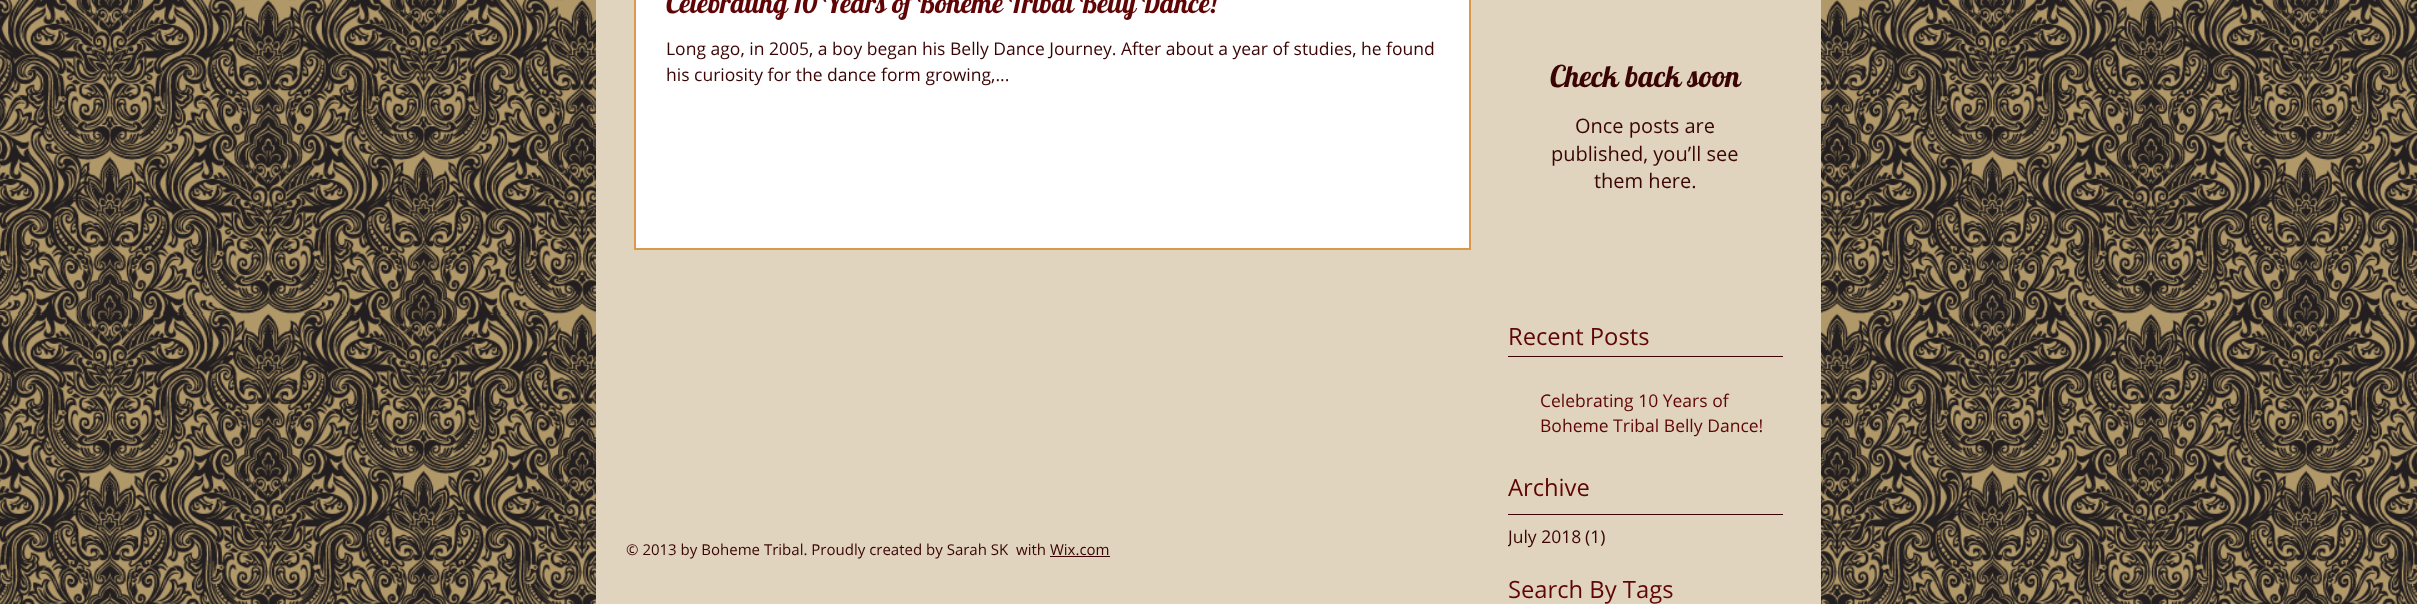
<?xml version="1.0" encoding="UTF-8"?>
<svg xmlns="http://www.w3.org/2000/svg" width="2417" height="604">
    <style>*{font-kerning:none!important;font-variant-ligatures:none!important}</style>
    <defs>
        <clipPath id="clip1"><rect x="1508" y="523" width="98" height="26"/></clipPath>
    </defs>
    <rect width="100%" height="100%" fill="#B19869"/>
    <image x="0" y="0" width="2417" height="604" href="img_01.png"/>
    <rect x="596" y="0" width="1225" height="604" fill="#E0D4BE"/>
    <rect x="635.5" y="-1.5" width="834" height="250" fill="none" stroke="#DD974B" stroke-width="3"/>
    <rect x="636" y="0" width="833" height="248" fill="#FFFFFF"/>
    <text x="666" y="13" font-family="Lobster" font-size="27.5" fill="#600505">Celebrating 10 Years of Boheme Tribal Belly</text>
    <text x="1142" y="13" font-family="Lobster" font-size="27.5" fill="#600505">Dance!</text>
    <text font-family="Open Sans" font-size="17.5" fill="#3A0404">
        <tspan x="666" y="55">Long ago, in 2005, a boy began his Belly Dance Journey. After about a year of studies, he found</tspan>
        <tspan x="666" y="81">his curiosity for the dance form growing,...</tspan>
    </text>
    <text x="1550" y="87" font-family="Lobster" font-size="30" fill="#3A0404">Check back soon</text>
    <text x="1575" y="133" font-family="Open Sans" font-size="20" fill="#3A0404">Once posts are</text>
    <text x="1551" y="161" font-family="Open Sans" font-size="20" fill="#3A0404">published, you’ll see</text>
    <text x="1594" y="188" font-family="Open Sans" font-size="20" fill="#3A0404">them here.</text>
    <text x="1508" y="345" font-family="Open Sans" font-size="23.75" fill="#600505">Recent Posts</text>
    <rect x="1508" y="356" width="275" height="1" fill="#3A0404"/>
    <text font-family="Open Sans" font-size="17.5" fill="#600505">
        <tspan x="1540" y="407">Celebrating 10 Years of</tspan>
        <tspan x="1540" y="432">Boheme Tribal Belly Dance!</tspan>
    </text>
    <text x="1508" y="496" font-family="Open Sans" font-size="23.75" fill="#600505">Archive</text>
    <rect x="1508" y="514" width="275" height="1" fill="#3A0404"/>
    <g clip-path="url(#clip1)">
        <text x="1508" y="543" font-family="Open Sans" font-size="17.5" fill="#3A0404">July 2018</text>
    </g>
    <text x="1585" y="543" font-family="Open Sans" font-size="17.5" fill="#3A0404">(1)</text>
    <text x="1508" y="598" font-family="Open Sans" font-size="23.75" fill="#600505">Search By Tags</text>
    <text x="626" y="555" font-family="Open Sans" font-size="15" fill="#3A0404" xml:space="preserve">© 2013 by Boheme Tribal. Proudly created by Sarah SK  with Wix.com</text>
    <rect x="1050" y="556" width="60" height="1" fill="#3A0404"/>
</svg>
